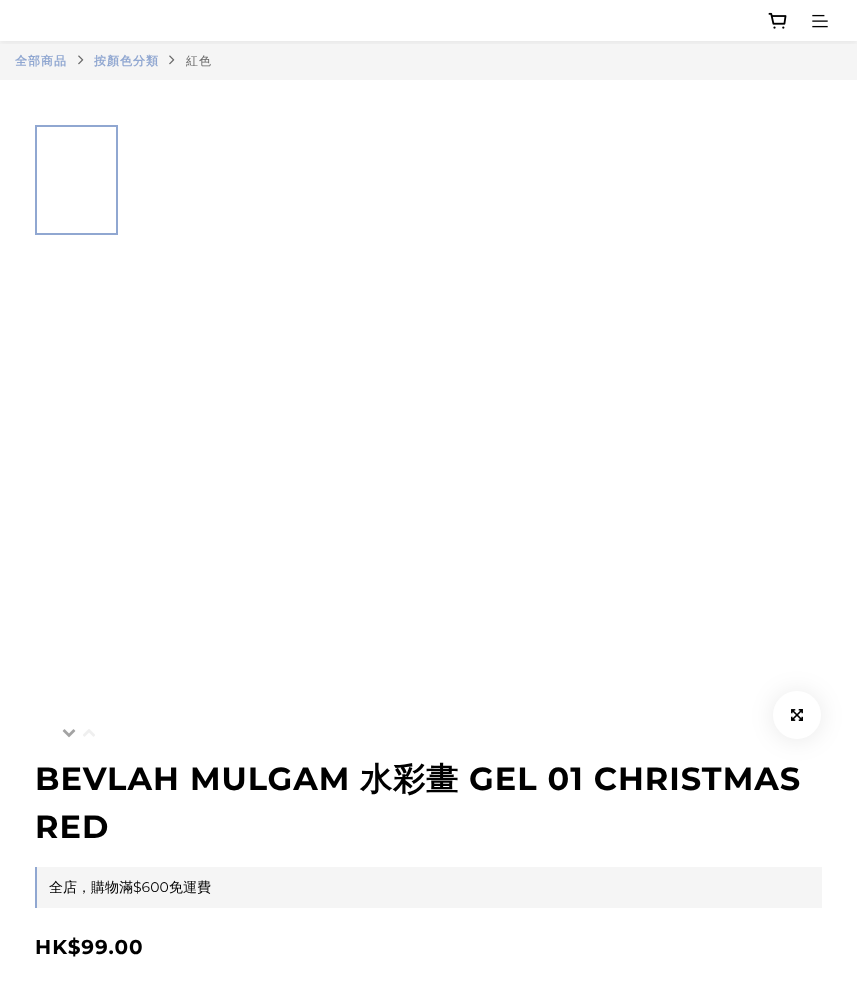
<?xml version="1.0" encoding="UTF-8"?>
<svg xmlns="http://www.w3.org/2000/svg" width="857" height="981">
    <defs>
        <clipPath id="clip1"><rect x="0" y="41" width="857" height="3"/></clipPath>
        <filter id="blur1" x="-50%" y="-200%" width="200%" height="500%"><feGaussianBlur stdDeviation="3"/></filter>
        <filter id="blur2" x="-50%" y="-200%" width="200%" height="500%"><feGaussianBlur stdDeviation="12"/></filter>
    </defs>
    <rect width="100%" height="100%" fill="#FFFFFF"/>
    <rect x="0" y="41" width="857" height="39" fill="#F5F5F5"/>
    <g clip-path="url(#clip1)">
        <rect x="0" y="2" width="857" height="41" fill="#000000" fill-opacity="0.06" filter="url(#blur1)"/>
    </g>
    <image x="768" y="12" width="19" height="17" href="img_01.png"/>
    <image x="812" y="14" width="16" height="14" href="img_02.png"/>
    <text x="15" y="65" font-family="WenQuanYi Zen Hei" font-size="12" font-weight="700" letter-spacing="1" fill="#90A7D1">全部商品</text>
    <image x="78" y="55" width="6" height="10" href="img_03.png"/>
    <text x="94" y="65" font-family="WenQuanYi Zen Hei" font-size="12" font-weight="700" letter-spacing="1" fill="#90A7D1">按顏色分類</text>
    <image x="169" y="55" width="6" height="10" href="img_03.png"/>
    <text x="186" y="65" font-family="WenQuanYi Zen Hei" font-size="12" font-weight="500" letter-spacing="1" fill="#666666">紅色</text>
    <rect x="36" y="126" width="81" height="108" fill="none" stroke="#90A7D1" stroke-width="2"/>
    <image x="62" y="729" width="14" height="9" href="img_04.png"/>
    <image x="83" y="729" width="12" height="8" href="img_05.png"/>
    <rect x="773" y="692" width="48" height="48" rx="24" fill="#000000" fill-opacity="0.09" filter="url(#blur2)"/>
    <circle cx="797" cy="715" r="24" fill="#FFFFFF"/>
    <image x="791" y="709" width="12" height="12" href="img_06.png"/>
    <text x="35" y="790" font-family="Montserrat" font-size="32" font-weight="700" letter-spacing="1" fill="#000000">BEVLAH MULGAM</text>
    <text x="360" y="790" font-family="WenQuanYi Zen Hei" font-size="32" font-weight="700" letter-spacing="1" fill="#000000">水彩畫</text>
    <text x="469" y="790" font-family="Montserrat" font-size="32" font-weight="700" letter-spacing="1" fill="#000000">GEL 01 CHRISTMAS</text>
    <text x="35" y="838" font-family="Montserrat" font-size="32" font-weight="700" letter-spacing="1" fill="#000000">RED</text>
    <rect x="37" y="867" width="785" height="41" fill="#F5F5F5"/>
    <rect x="35" y="867" width="2" height="41" fill="#90A7D1"/>
    <text x="49" y="892" font-family="WenQuanYi Zen Hei" font-size="14" font-weight="500" fill="#000000">全店，購物滿</text>
    <text x="133" y="892" font-family="Montserrat" font-size="14" fill="#000000">$600</text>
    <text x="169" y="892" font-family="WenQuanYi Zen Hei" font-size="14" font-weight="500" fill="#000000">免運費</text>
    <text x="35" y="954" font-family="Montserrat" font-size="20" font-weight="700" letter-spacing="1" fill="#000000">HK$99.00</text>
</svg>
